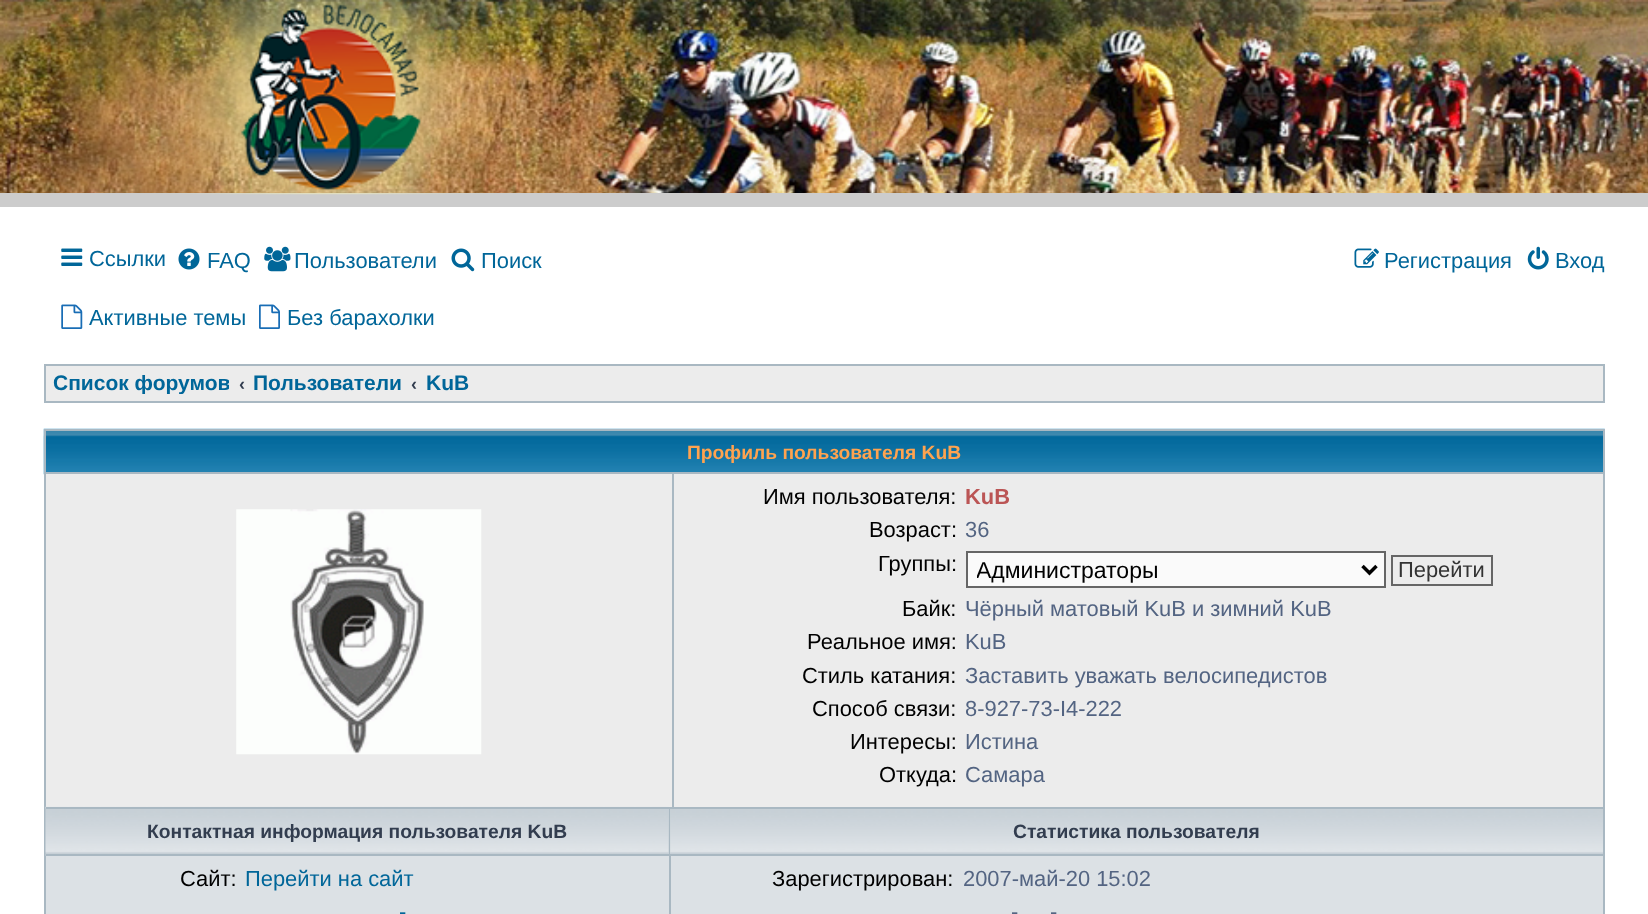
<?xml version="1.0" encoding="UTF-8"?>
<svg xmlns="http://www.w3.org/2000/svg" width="1648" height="914">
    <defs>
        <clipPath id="clip1"><rect x="53" y="375" width="176" height="19"/></clipPath>
        <clipPath id="clip2"><rect x="977" y="555" width="378" height="30"/></clipPath>
    </defs>
    <rect width="100%" height="100%" fill="#FFFFFF"/>
    <image x="0" y="0" width="1648" height="193" href="img_01.png"/>
    <rect x="0" y="193" width="1648" height="14" fill="#CCCCCC"/>
    <image x="137" y="0" width="377" height="195" href="img_02.png"/>
    <image x="61" y="248" width="22" height="18" href="img_03.png"/>
    <text x="89" y="266" font-family="Liberation Sans" font-size="21.9" fill="#006699">Ссылки</text>
    <image x="178" y="248" width="22" height="22" href="img_04.png"/>
    <text x="207" y="268" font-family="Liberation Sans" font-size="21.9" fill="#006699">FAQ</text>
    <image x="264" y="246" width="27" height="26" href="img_05.png"/>
    <text x="294" y="268" font-family="Liberation Sans" font-size="21.9" fill="#006699">Пользователи</text>
    <image x="451" y="248" width="24" height="24" href="img_06.png"/>
    <text x="481" y="268" font-family="Liberation Sans" font-size="21.9" fill="#006699">Поиск</text>
    <image x="1354" y="248" width="25" height="20" href="img_07.png"/>
    <text x="1384" y="268" font-family="Liberation Sans" font-size="21.9" fill="#006699">Регистрация</text>
    <image x="1527" y="246" width="22" height="24" href="img_08.png"/>
    <text x="1555" y="268" font-family="Liberation Sans" font-size="21.9" fill="#006699">Вход</text>
    <image x="61" y="304" width="22" height="25" href="img_09.png"/>
    <text x="89" y="325" font-family="Liberation Sans" font-size="21.9" fill="#006699">Активные темы</text>
    <image x="259" y="304" width="21" height="25" href="img_10.png"/>
    <text x="287" y="325" font-family="Liberation Sans" font-size="21.9" fill="#006699">Без барахолки</text>
    <rect x="45" y="365" width="1559" height="37" fill="#ECECEC" stroke="#A9B8C2" stroke-width="2"/>
    <g clip-path="url(#clip1)">
        <text x="53" y="390" font-family="Liberation Sans" font-size="21" font-weight="700" fill="#006699">Список форумов</text>
    </g>
    <text x="239" y="390" font-family="Liberation Sans" font-size="18" font-weight="700" fill="#323D4F">‹</text>
    <text x="253" y="390" font-family="Liberation Sans" font-size="21" font-weight="700" fill="#006699">Пользователи</text>
    <text x="411" y="390" font-family="Liberation Sans" font-size="18" font-weight="700" fill="#323D4F">‹</text>
    <text x="426" y="390" font-family="Liberation Sans" font-size="21" font-weight="700" fill="#006699">KuB</text>
    <image x="43" y="428" width="1562" height="47" href="img_11.png"/>
    <rect x="45" y="430" width="1559" height="43" fill="none" stroke="#A9B8C2" stroke-width="2"/>
    <text x="687" y="459" font-family="Liberation Sans" font-size="19.25" font-weight="700" fill="#FFA34F">Профиль пользователя KuB</text>
    <rect x="1603" y="474" width="2" height="440" fill="#A9B8C2"/>
    <rect x="44" y="474" width="2" height="440" fill="#A9B8C2"/>
    <rect x="46" y="474" width="1557" height="333" fill="#ECECEC"/>
    <image x="236" y="509" width="246" height="246" href="img_12.png"/>
    <rect x="672" y="474" width="2" height="333" fill="#A9B8C2"/>
    <text x="763" y="504" font-family="Liberation Sans" font-size="21.9" fill="#000000">Имя пользователя:</text>
    <text x="965" y="504" font-family="Liberation Sans" font-size="21.9" font-weight="700" fill="#BB5555">KuB</text>
    <text x="869" y="537" font-family="Liberation Sans" font-size="21.9" fill="#000000">Возраст:</text>
    <text x="965" y="537" font-family="Liberation Sans" font-size="21.9" fill="#536482">36</text>
    <text x="878" y="571" font-family="Liberation Sans" font-size="21.9" fill="#000000">Группы:</text>
    <rect x="967" y="552" width="418" height="35" fill="#FAFAFA" stroke="#666666" stroke-width="2"/>
    <path d="M 1362.5 566 L 1369.5 573 L 1376.5 566" fill="none" stroke="#000000" stroke-width="3.5"/>
    <g clip-path="url(#clip2)">
        <text x="976" y="578" font-family="Liberation Sans" font-size="23" fill="#000000">Администраторы</text>
    </g>
    <rect x="1392" y="556" width="100" height="29" fill="none" stroke="#666666" stroke-width="2"/>
    <text x="1398" y="577" font-family="Liberation Sans" font-size="21.9" fill="#333333">Перейти</text>
    <text x="902" y="616" font-family="Liberation Sans" font-size="21.9" fill="#000000">Байк:</text>
    <text x="965" y="616" font-family="Liberation Sans" font-size="21.9" fill="#536482">Чёрный матовый KuB и зимний KuB</text>
    <text x="807" y="649" font-family="Liberation Sans" font-size="21.9" fill="#000000">Реальное имя:</text>
    <text x="965" y="649" font-family="Liberation Sans" font-size="21.9" fill="#536482">KuB</text>
    <text x="802" y="683" font-family="Liberation Sans" font-size="21.9" fill="#000000">Стиль катания:</text>
    <text x="965" y="683" font-family="Liberation Sans" font-size="21.9" fill="#536482">Заставить уважать велосипедистов</text>
    <text x="812" y="716" font-family="Liberation Sans" font-size="21.9" fill="#000000">Способ связи:</text>
    <text x="965" y="716" font-family="Liberation Sans" font-size="21.9" fill="#536482">8-927-73-I4-222</text>
    <text x="850" y="749" font-family="Liberation Sans" font-size="21.9" fill="#000000">Интересы:</text>
    <text x="965" y="749" font-family="Liberation Sans" font-size="21.9" fill="#536482">Истина</text>
    <text x="879" y="782" font-family="Liberation Sans" font-size="21.9" fill="#000000">Откуда:</text>
    <text x="965" y="782" font-family="Liberation Sans" font-size="21.9" fill="#536482">Самара</text>
    <rect x="46" y="856" width="1557" height="58" fill="#DCE1E5"/>
    <rect x="668" y="809" width="1" height="45" fill="#C7D0D7"/>
    <image x="45" y="806" width="624" height="50" href="img_13.png"/>
    <rect x="46" y="807" width="623" height="2" fill="#A9B8C2"/>
    <rect x="46" y="854" width="623" height="2" fill="#A9B8C2"/>
    <text x="147" y="838" font-family="Liberation Sans" font-size="19.25" font-weight="700" fill="#323D4F">Контактная информация пользователя KuB</text>
    <text x="180" y="886" font-family="Liberation Sans" font-size="21.9" fill="#000000">Сайт:</text>
    <text x="245" y="886" font-family="Liberation Sans" font-size="21.9" fill="#006699">Перейти на сайт</text>
    <text x="399" y="919" font-family="Liberation Sans" font-size="21.9" fill="#006699">-</text>
    <rect x="669" y="807" width="2" height="107" fill="#A9B8C2"/>
    <rect x="670" y="809" width="933" height="45" fill="#C7D0D7"/>
    <image x="670" y="809" width="933" height="44" href="img_14.png"/>
    <rect x="670" y="807" width="933" height="2" fill="#A9B8C2"/>
    <rect x="670" y="854" width="933" height="2" fill="#A9B8C2"/>
    <text x="1013" y="838" font-family="Liberation Sans" font-size="19.25" font-weight="700" fill="#323D4F">Статистика пользователя</text>
    <text x="772" y="886" font-family="Liberation Sans" font-size="21.9" fill="#000000">Зарегистрирован:</text>
    <text x="963" y="886" font-family="Liberation Sans" font-size="21.9" fill="#536482">2007-май-20 15:02</text>
    <text x="1011" y="919" font-family="Liberation Sans" font-size="21.9" fill="#536482">-</text>
    <text x="1050" y="919" font-family="Liberation Sans" font-size="21.9" fill="#536482">-</text>
</svg>
